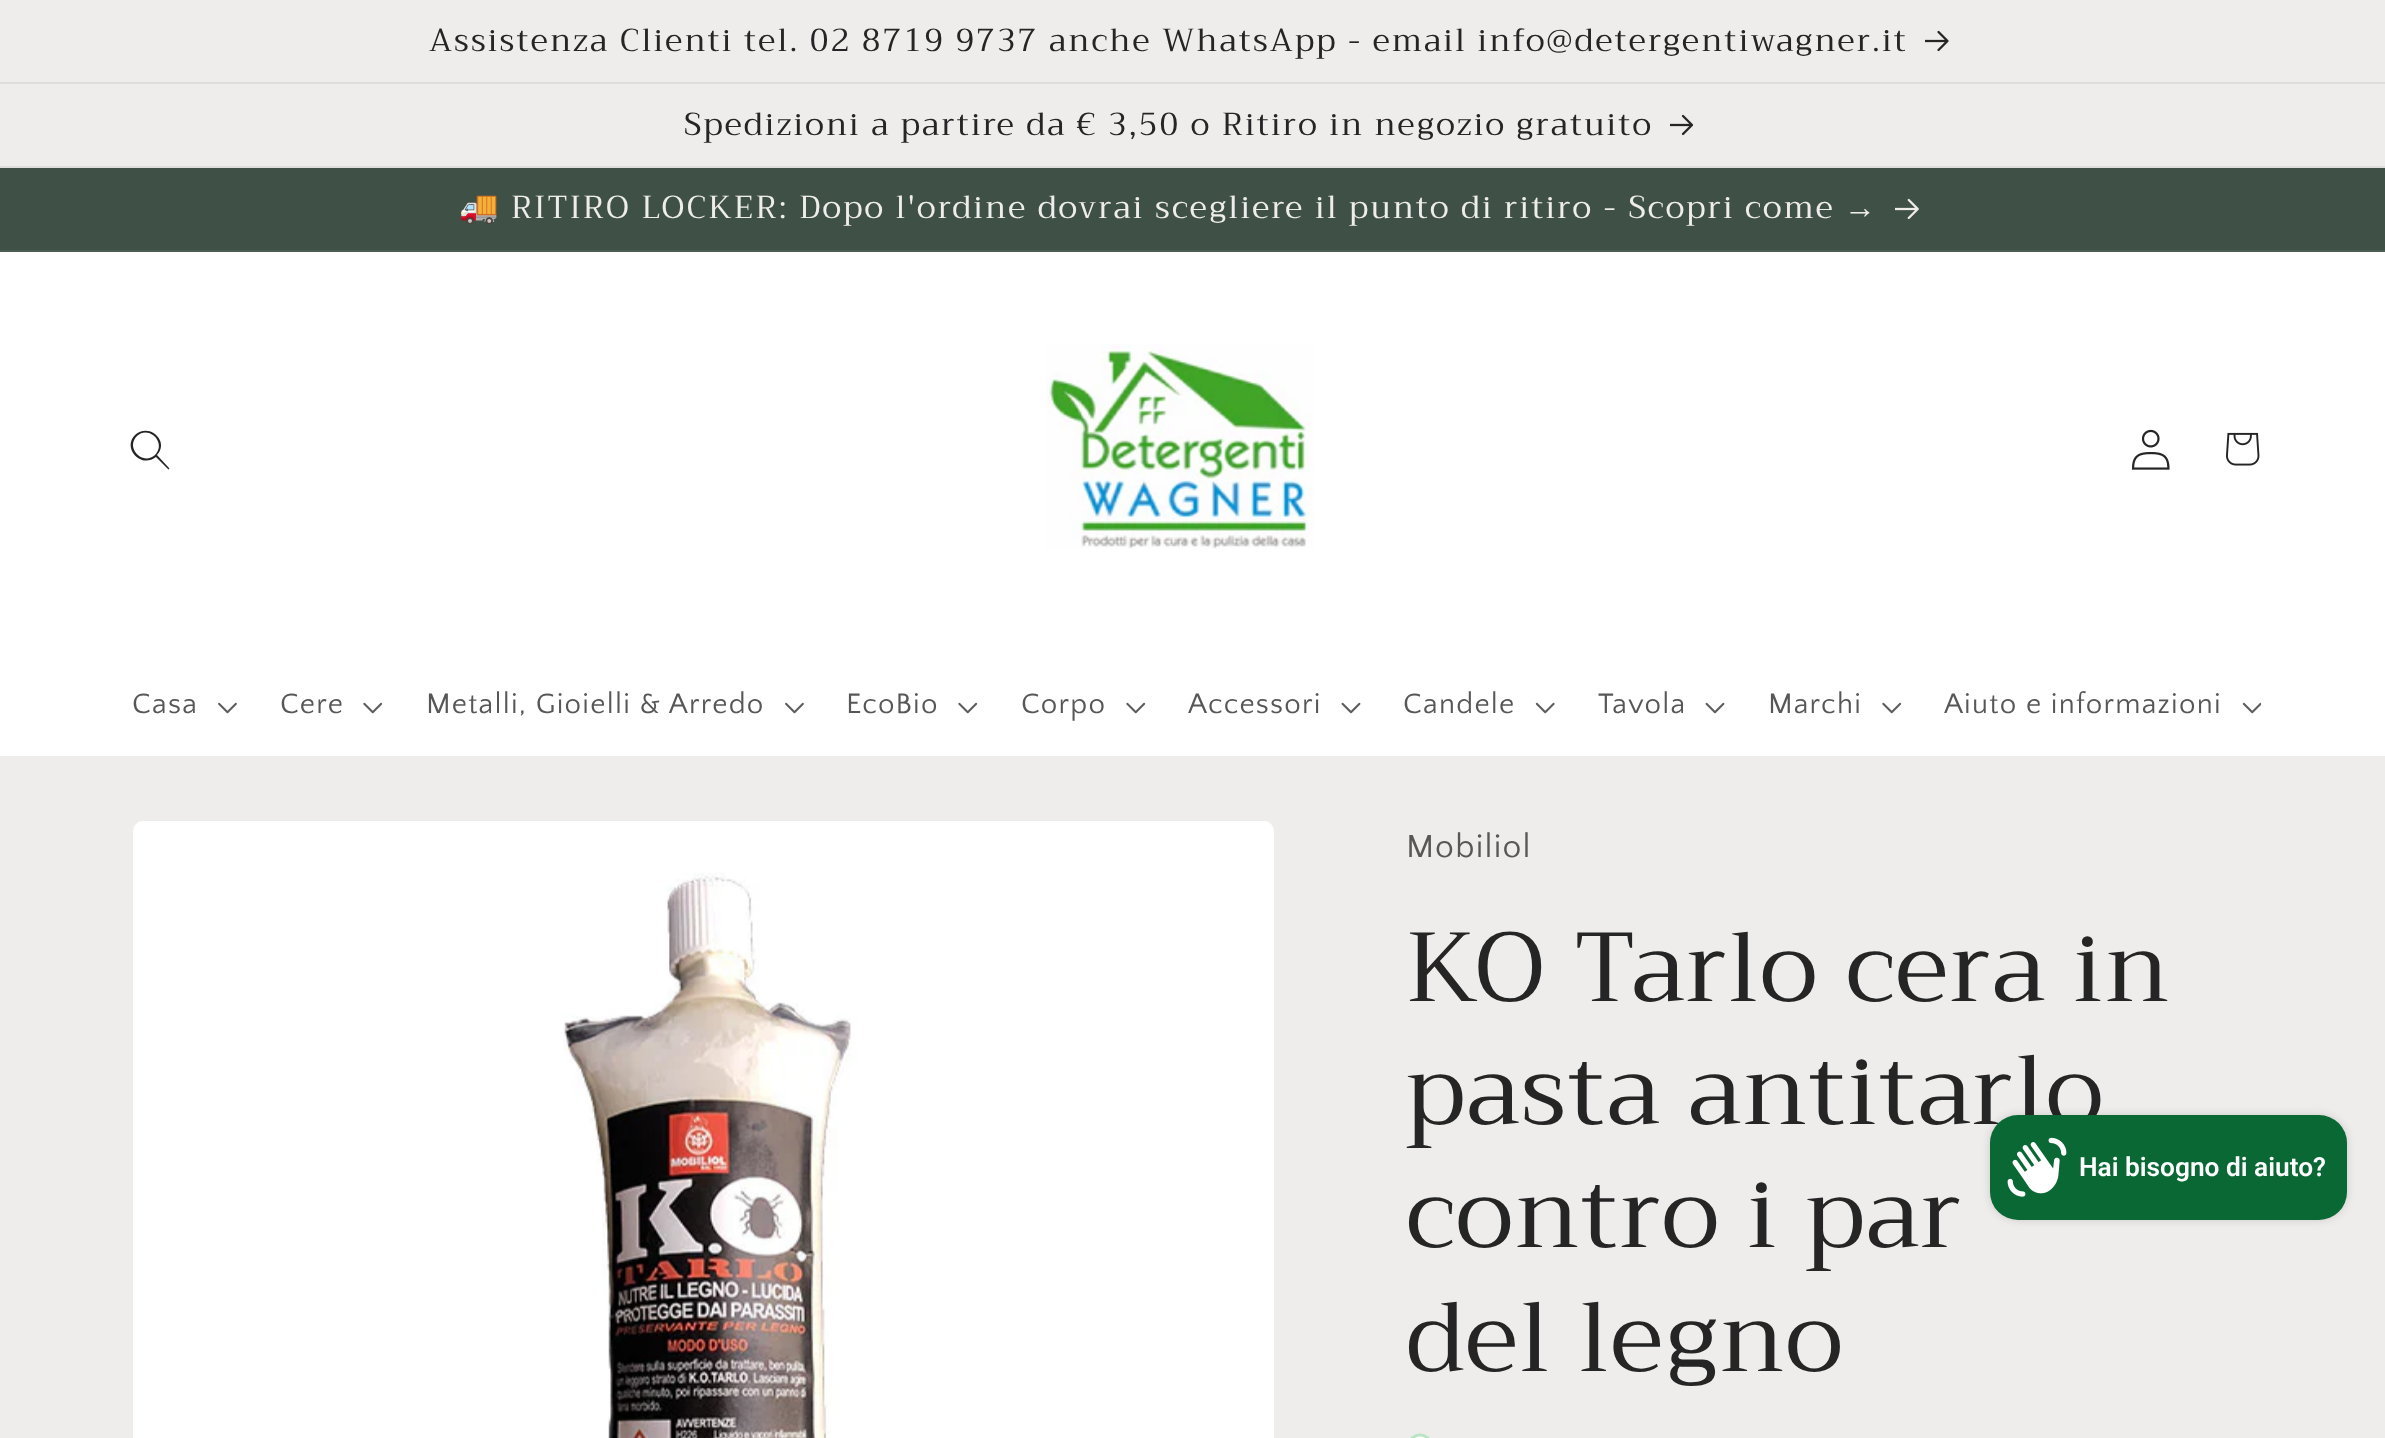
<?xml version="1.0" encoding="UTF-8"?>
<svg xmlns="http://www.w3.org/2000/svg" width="2385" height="1438">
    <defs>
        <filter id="blur1" x="-50%" y="-200%" width="200%" height="500%"><feGaussianBlur stdDeviation="4.5"/></filter>
    </defs>
    <rect width="100%" height="100%" fill="#EFECEC"/>
    <rect x="0" y="82" width="2385" height="2" fill="#DFDCDC"/>
    <text x="429" y="51" font-family="Trirong" font-size="31.85" letter-spacing="2.1" fill="#252525">Assistenza Clienti tel. 02 8719 9737 anche WhatsApp - email info@detergentiwagner.it</text>
    <image x="1925" y="30" width="24" height="22" href="img_01.png"/>
    <rect x="0" y="166" width="2385" height="2" fill="#DFDCDC"/>
    <text x="684" y="135" font-family="Trirong" font-size="31.85" letter-spacing="2.1" fill="#252525">Spedizioni a partire da € 3,50 o Ritiro in negozio gratuito</text>
    <image x="1670" y="114" width="24" height="22" href="img_02.png"/>
    <rect x="0" y="168" width="2385" height="82" fill="#3F5147"/>
    <rect x="0" y="250" width="2385" height="2" fill="#4D5D54"/>
    <text x="459" y="218" font-family="Noto Color Emoji" font-size="31.85" letter-spacing="2.1" fill="#EFECEC">🚚</text>
    <text x="511" y="218" font-family="Trirong" font-size="31.85" letter-spacing="2.1" fill="#EFECEC">RITIRO LOCKER: Dopo l'ordine dovrai scegliere il punto di ritiro - Scopri come</text>
    <text x="1844" y="218" font-family="Liberation Serif" font-size="31.85" letter-spacing="2.1" fill="#EFECEC">→</text>
    <image x="1895" y="198" width="24" height="21" href="img_03.png"/>
    <rect x="0" y="252" width="2385" height="504" fill="#FFFFFF"/>
    <path d="M 155 455 C 143 466 125 448 137 436 C 149 425 167 443 155 455 M 156 457 C 141 469 122 448 135 435 C 149 422 170 441 157 455 L 169 468 C 170 469 168 470 168 469 Z" fill="#252525" fill-rule="evenodd"/>
    <image x="1046" y="344" width="268" height="205" href="img_04.png"/>
    <image x="2131" y="429" width="39" height="41" href="img_05.png"/>
    <image x="2226" y="432" width="34" height="34" href="img_06.png"/>
    <text x="132" y="713" font-family="Quattrocento Sans" font-size="29.4" letter-spacing="1.25" fill="#585757">Casa</text>
    <image x="218" y="702" width="19" height="12" href="img_07.png"/>
    <text x="280" y="713" font-family="Quattrocento Sans" font-size="29.4" letter-spacing="1.25" fill="#585757">Cere</text>
    <image x="363" y="702" width="20" height="12" href="img_08.png"/>
    <text x="426" y="713" font-family="Quattrocento Sans" font-size="29.4" letter-spacing="1.25" fill="#585757">Metalli, Gioielli &amp; Arredo</text>
    <image x="785" y="702" width="19" height="12" href="img_07.png"/>
    <text x="846" y="713" font-family="Quattrocento Sans" font-size="29.4" letter-spacing="1.25" fill="#585757">EcoBio</text>
    <image x="958" y="702" width="20" height="12" href="img_08.png"/>
    <text x="1021" y="713" font-family="Quattrocento Sans" font-size="29.4" letter-spacing="1.25" fill="#585757">Corpo</text>
    <image x="1126" y="702" width="20" height="12" href="img_08.png"/>
    <text x="1188" y="713" font-family="Quattrocento Sans" font-size="29.4" letter-spacing="1.25" fill="#585757">Accessori</text>
    <image x="1341" y="702" width="20" height="12" href="img_09.png"/>
    <text x="1403" y="713" font-family="Quattrocento Sans" font-size="29.4" letter-spacing="1.25" fill="#585757">Candele</text>
    <image x="1535" y="702" width="20" height="12" href="img_10.png"/>
    <text x="1598" y="713" font-family="Quattrocento Sans" font-size="29.4" letter-spacing="1.25" fill="#585757">Tavola</text>
    <image x="1705" y="702" width="20" height="12" href="img_09.png"/>
    <text x="1768" y="713" font-family="Quattrocento Sans" font-size="29.4" letter-spacing="1.25" fill="#585757">Marchi</text>
    <image x="1882" y="702" width="20" height="12" href="img_08.png"/>
    <text x="1944" y="713" font-family="Quattrocento Sans" font-size="29.4" letter-spacing="1.25" fill="#585757">Aiuto e informazioni</text>
    <image x="2242" y="702" width="19" height="12" href="img_11.png"/>
    <image x="133" y="821" width="1141" height="617" href="img_12.png"/>
    <text x="1406" y="857" font-family="Quattrocento Sans" font-size="33.5" letter-spacing="1.25" fill="#585757">Mobiliol</text>
    <text font-family="Trirong" font-size="98" letter-spacing="1.5" fill="#252525">
        <tspan x="1406" y="1001">KO Tarlo cera in</tspan>
        <tspan x="1406" y="1124">pasta antitarlo</tspan>
        <tspan x="1406" y="1247">contro i par</tspan>
        <tspan x="1406" y="1371">del legno</tspan>
    </text>
    <circle cx="1420" cy="1446.5" r="13" fill="#BAE5C2"/>
    <circle cx="1420" cy="1446.5" r="9" fill="none" stroke="#FFFFFF" stroke-width="1.8"/>
    <rect x="1990" y="1115" width="357" height="105" rx="28" fill="#000000" fill-opacity="0.15" filter="url(#blur1)"/>
    <rect x="1990" y="1115" width="357" height="105" rx="28" fill="#096834"/>
    <image x="2007" y="1137" width="60" height="60" href="img_13.png"/>
    <text x="2079" y="1176" font-family="Roboto" font-size="26.25" font-weight="600" fill="#FFFFFF">Hai bisogno di aiuto?</text>
</svg>
